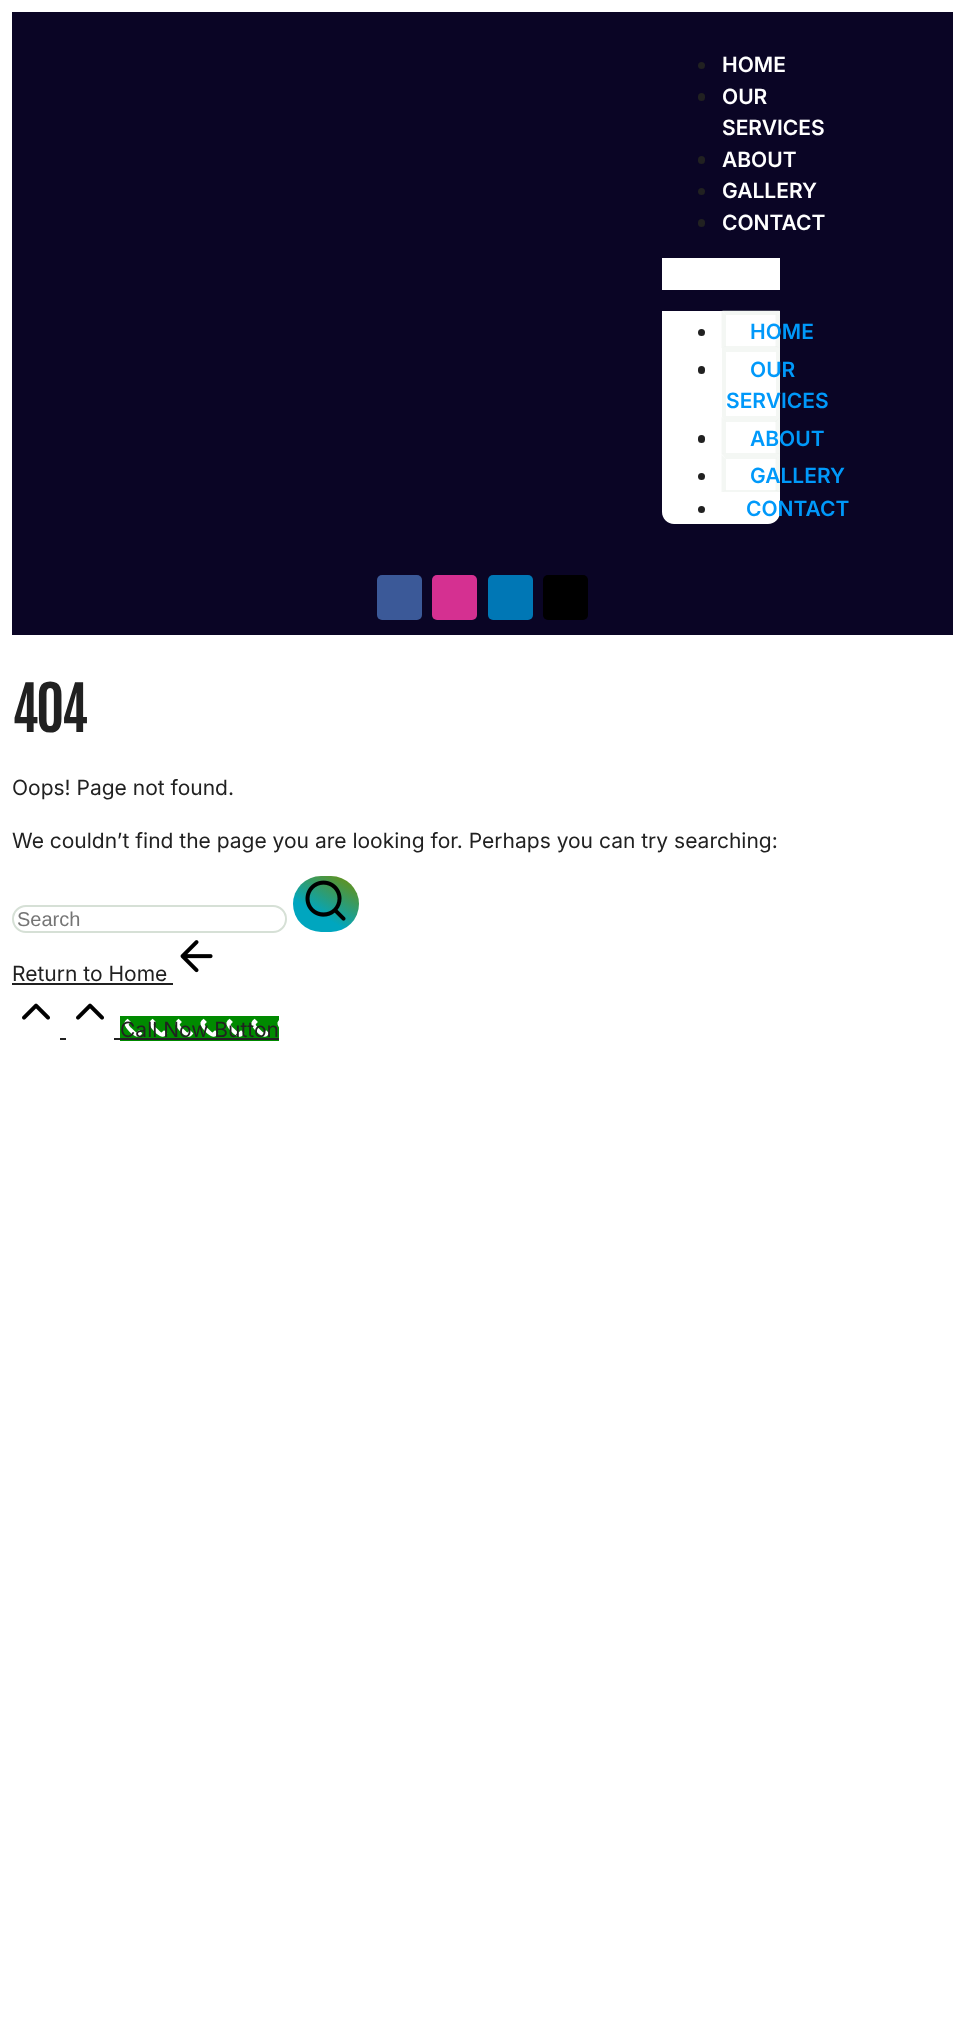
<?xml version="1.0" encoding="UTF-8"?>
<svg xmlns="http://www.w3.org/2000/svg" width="964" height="2031">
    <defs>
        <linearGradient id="g1" gradientUnits="userSpaceOnUse" x1="346" y1="869" x2="305" y2="939"><stop offset="0" stop-color="#718E03"/><stop offset="0.65" stop-color="#00A6BF"/></linearGradient>
    </defs>
    <rect width="100%" height="100%" fill="#FFFFFF"/>
    <rect x="12" y="12" width="941" height="623" fill="#0A0525"/>
    <circle cx="701.5" cy="65.5" r="3.5" fill="#212121"/>
    <text x="722" y="72" font-family="Inter" font-size="21" font-weight="600" fill="#FFFFFF">HOME</text>
    <rect x="698" y="93" width="7" height="8" rx="3.5" fill="#212121"/>
    <text font-family="Inter" font-size="21" font-weight="600" fill="#FFFFFF">
        <tspan x="722" y="104">OUR</tspan>
        <tspan x="722" y="135">SERVICES</tspan>
    </text>
    <rect x="698" y="156" width="7" height="8" rx="3.5" fill="#212121"/>
    <text x="722" y="167" font-family="Inter" font-size="21" font-weight="600" fill="#FFFFFF">ABOUT</text>
    <circle cx="701.5" cy="191.5" r="3.5" fill="#212121"/>
    <text x="722" y="198" font-family="Inter" font-size="21" font-weight="600" fill="#FFFFFF">GALLERY</text>
    <rect x="698" y="219" width="7" height="8" rx="3.5" fill="#212121"/>
    <text x="722" y="230" font-family="Inter" font-size="21" font-weight="600" fill="#FFFFFF">CONTACT</text>
    <rect x="662" y="258" width="118" height="32" fill="#FFFFFF"/>
    <path d="M 662 311 H 780 V 512 C 780 518.5 774.5 524 768 524 H 674 C 667.5 524 662 518.5 662 512 Z" fill="#FFFFFF"/>
    <path d="M 722 310 H 780 L 776 315 H 726 Z" fill="#D6E0D6" fill-opacity="0.27"/>
    <path d="M 780 310.5 V 348 L 775.5 346.5 V 315 Z" fill="#D6E0D6" fill-opacity="0.27"/>
    <path d="M 780 348 H 722 L 726 346 H 776 Z" fill="#D6E0D6" fill-opacity="0.27"/>
    <path d="M 721.5 348 V 310.5 L 726 315 V 346.5 Z" fill="#D6E0D6" fill-opacity="0.27"/>
    <circle cx="701.5" cy="332.5" r="3.5" fill="#212121"/>
    <text x="750" y="339" font-family="Inter" font-size="21" font-weight="600" fill="#0099FA">HOME</text>
    <path d="M 722 348 H 780 L 776 352 H 726 Z" fill="#F4F7F4"/>
    <path d="M 780 348 V 417 L 776 416 V 352 Z" fill="#D6E0D6" fill-opacity="0.27"/>
    <path d="M 780 417 H 722 L 726 416 H 776 Z" fill="#D6E0D6" fill-opacity="0.27"/>
    <path d="M 722 417 V 348 L 726 352 V 416 Z" fill="#D6E0D6" fill-opacity="0.27"/>
    <rect x="698" y="366" width="7" height="8" rx="3.5" fill="#212121"/>
    <text x="750" y="377" font-family="Inter" font-size="21" font-weight="600" fill="#0099FA">OUR</text>
    <text x="726" y="408" font-family="Inter" font-size="21" font-weight="600" fill="#0099FA">SERVICES</text>
    <path d="M 722 417 H 780 L 776 422 H 726 Z" fill="#F4F7F4"/>
    <path d="M 780 417 V 454.5 L 775.5 453 V 421.5 Z" fill="#D6E0D6" fill-opacity="0.27"/>
    <path d="M 780 454 H 722 L 726 453 H 776 Z" fill="#D6E0D6" fill-opacity="0.27"/>
    <path d="M 721.5 454.5 V 417 L 726 421.5 V 453 Z" fill="#D6E0D6" fill-opacity="0.27"/>
    <rect x="698" y="435" width="7" height="8" rx="3.5" fill="#212121"/>
    <text x="750" y="446" font-family="Inter" font-size="21" font-weight="600" fill="#0099FA">ABOUT</text>
    <path d="M 722 454 H 780 L 776 459 H 726 Z" fill="#D6E0D6" fill-opacity="0.27"/>
    <path d="M 780 454.5 V 492 L 775.5 490.5 V 459 Z" fill="#D6E0D6" fill-opacity="0.27"/>
    <path d="M 780 492 H 722 L 726 490 H 776 Z" fill="#D6E0D6" fill-opacity="0.27"/>
    <path d="M 721.5 492 V 454.5 L 726 459 V 490.5 Z" fill="#D6E0D6" fill-opacity="0.27"/>
    <circle cx="701.5" cy="476.5" r="3.5" fill="#212121"/>
    <text x="750" y="483" font-family="Inter" font-size="21" font-weight="600" fill="#0099FA">GALLERY</text>
    <circle cx="701.5" cy="509.5" r="3.5" fill="#212121"/>
    <text x="746" y="516" font-family="Inter" font-size="21" font-weight="600" fill="#0099FA">CONTACT</text>
    <rect x="377" y="575" width="45" height="45" rx="5" fill="#3B5998"/>
    <rect x="432" y="575" width="45" height="45" rx="5" fill="#D53091"/>
    <rect x="488" y="575" width="45" height="45" rx="5" fill="#0077B5"/>
    <rect x="543" y="575" width="45" height="45" rx="5" fill="#000000"/>
    <text x="12" y="732" font-family="Antonio" font-size="58" font-weight="700" letter-spacing="-3" fill="#212121">404</text>
    <text x="12" y="795" font-family="Inter" font-size="21" fill="#212121">Oops! Page not found.</text>
    <text x="12" y="848" font-family="Inter" font-size="21" fill="#212121">We couldn’t find the page you are looking for. Perhaps you can try searching:</text>
    <rect x="13" y="906" width="273" height="26" rx="13" fill="none" stroke="#D6E0D6" stroke-width="2"/>
    <text x="17" y="926" font-family="Liberation Sans" font-size="20" fill="#757575">Search</text>
    <rect x="293" y="876" width="66" height="56" rx="28" fill="url(#g1)"/>
    <image x="305" y="880" width="41" height="41" href="img_01.png"/>
    <text x="12" y="981" font-family="Inter" font-size="21" fill="#212121">Return to Home</text>
    <rect x="12" y="983" width="161" height="2" fill="#212121"/>
    <image x="180" y="940" width="33" height="33" href="img_02.png"/>
    <image x="22" y="1003" width="28" height="17" href="img_03.png"/>
    <image x="76" y="1003" width="28" height="17" href="img_03.png"/>
    <rect x="120" y="1016" width="159" height="25" fill="#008A00"/>
    <image x="124" y="1018" width="155" height="19" href="img_04.png"/>
    <text x="120" y="1037" font-family="Inter" font-size="21" fill="#212121">Call Now Button</text>
    <rect x="120" y="1038" width="159" height="2" fill="#212121"/>
    <rect x="60" y="1038" width="6" height="2" fill="#212121"/>
    <rect x="114" y="1038" width="6" height="2" fill="#212121"/>
</svg>
